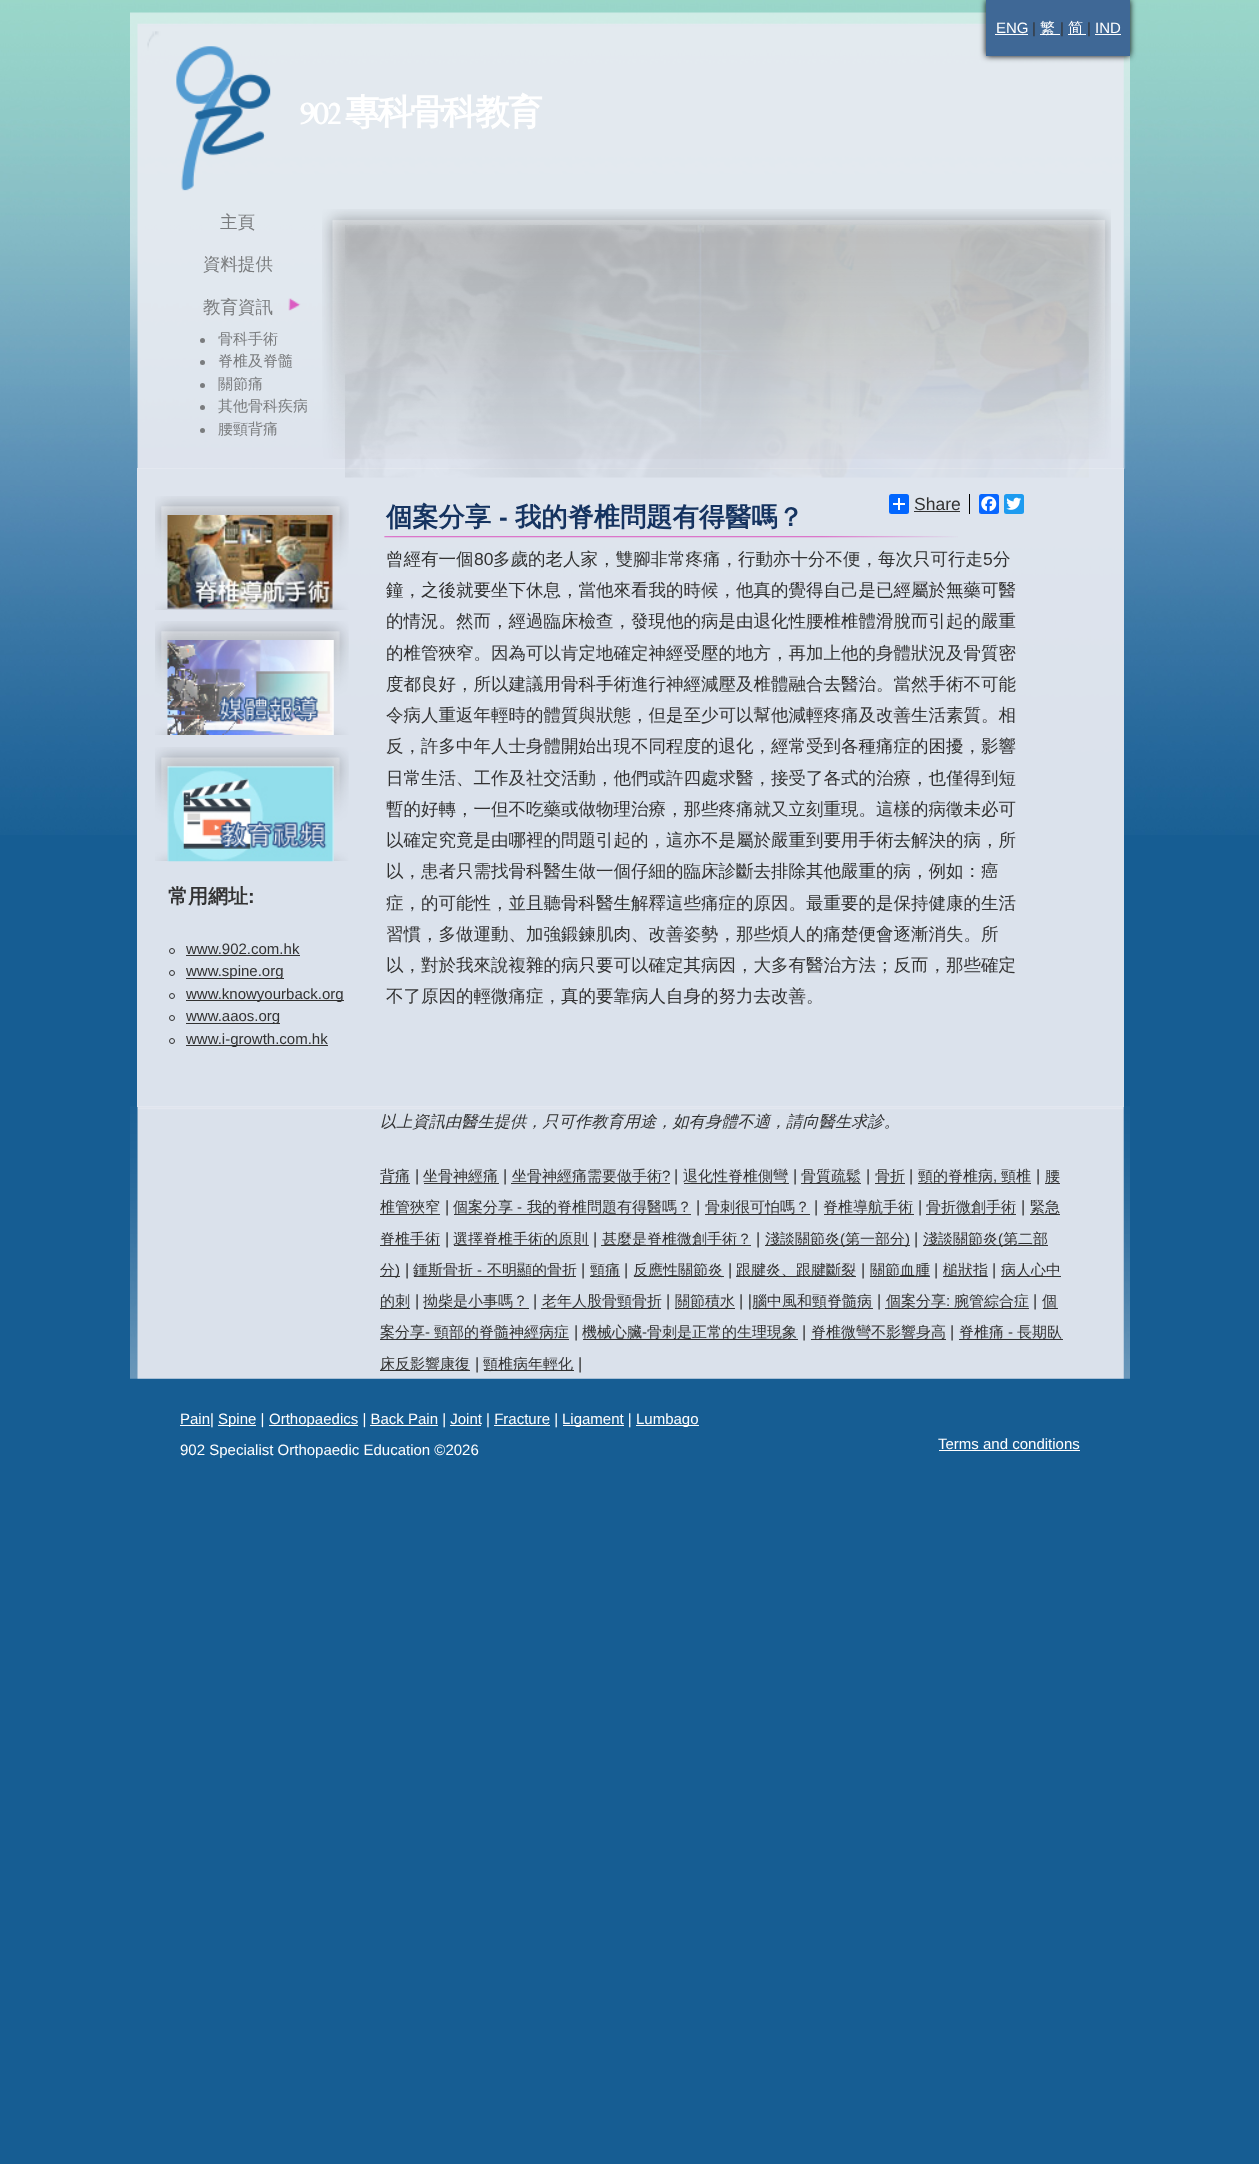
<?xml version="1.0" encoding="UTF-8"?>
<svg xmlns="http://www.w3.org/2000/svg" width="1259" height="2164">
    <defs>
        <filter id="blur1" x="-50%" y="-200%" width="200%" height="500%"><feGaussianBlur stdDeviation="3"/></filter>
    </defs>
    <rect width="100%" height="100%" fill="#165D93"/>
    <image x="0" y="0" width="1259" height="835" href="img_01.png"/>
    <image x="130" y="12" width="1000" height="457" href="img_02.png"/>
    <rect x="986" y="0" width="144" height="56" fill="#111111" filter="url(#blur1)"/>
    <rect x="986" y="0" width="144" height="56" fill="#3F6896"/>
    <text x="996" y="33" font-family="Liberation Sans" font-size="15" fill="#FFFFFF">ENG</text>
    <rect x="995" y="34" width="33" height="1" fill="#FFFFFF"/>
    <text x="1032" y="33" font-family="Liberation Sans" font-size="15" fill="#323232">|</text>
    <rect x="1040" y="34" width="20" height="1" fill="#FFFFFF"/>
    <text x="1040" y="33" font-family="WenQuanYi Zen Hei" font-size="15" font-weight="500" fill="#FFFFFF">繁</text>
    <text x="1060" y="33" font-family="Liberation Sans" font-size="15" fill="#323232">|</text>
    <rect x="1068" y="34" width="18" height="1" fill="#FFFFFF"/>
    <text x="1068" y="33" font-family="WenQuanYi Zen Hei" font-size="15" font-weight="500" fill="#FFFFFF">简</text>
    <text x="1087" y="33" font-family="Liberation Sans" font-size="15" fill="#323232">|</text>
    <text x="1095" y="33" font-family="Liberation Sans" font-size="15" fill="#FFFFFF">IND</text>
    <rect x="1095" y="34" width="26" height="1" fill="#FFFFFF"/>
    <image x="176" y="46" width="95" height="145" href="img_03.png"/>
    <text x="299" y="124" font-family="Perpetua" font-size="35" font-weight="700" letter-spacing="-2.5" fill="#FFFFFF">902</text>
    <text x="345" y="124" font-family="WenQuanYi Zen Hei" font-size="35" font-weight="700" letter-spacing="-2.5" fill="#FFFFFF">專科骨科教育</text>
    <text x="220" y="228" font-family="WenQuanYi Zen Hei" font-size="17.5" font-weight="500" fill="#7A7C7E">主頁</text>
    <text x="203" y="270" font-family="WenQuanYi Zen Hei" font-size="17.5" font-weight="500" fill="#7A7C7E">資料提供</text>
    <image x="288" y="298" width="13" height="13" href="img_04.png"/>
    <text x="203" y="313" font-family="WenQuanYi Zen Hei" font-size="17.5" font-weight="500" fill="#7A7C7E">教育資訊</text>
    <circle cx="202.5" cy="340.5" r="2.5" fill="#7A7C7E"/>
    <text x="218" y="344" font-family="WenQuanYi Zen Hei" font-size="15" font-weight="500" fill="#7A7C7E">骨科手術</text>
    <circle cx="202.5" cy="362.5" r="2.5" fill="#7A7C7E"/>
    <text x="218" y="366" font-family="WenQuanYi Zen Hei" font-size="15" font-weight="500" fill="#7A7C7E">脊椎及脊髓</text>
    <circle cx="202.5" cy="385.5" r="2.5" fill="#7A7C7E"/>
    <text x="218" y="389" font-family="WenQuanYi Zen Hei" font-size="15" font-weight="500" fill="#7A7C7E">關節痛</text>
    <circle cx="202.5" cy="407.5" r="2.5" fill="#7A7C7E"/>
    <text x="218" y="411" font-family="WenQuanYi Zen Hei" font-size="15" font-weight="500" fill="#7A7C7E">其他骨科疾病</text>
    <circle cx="202.5" cy="430.5" r="2.5" fill="#7A7C7E"/>
    <text x="218" y="434" font-family="WenQuanYi Zen Hei" font-size="15" font-weight="500" fill="#7A7C7E">腰頸背痛</text>
    <image x="322" y="209" width="789" height="250" href="img_05.png"/>
    <rect x="137" y="468" width="987" height="639" fill="#E6E9F0" fill-opacity="0.95"/>
    <image x="345" y="225" width="744" height="253" href="img_06.png"/>
    <image x="155" y="496" width="194" height="114" href="img_07.png"/>
    <image x="167" y="515" width="166" height="94" href="img_08.png"/>
    <image x="155" y="621" width="194" height="114" href="img_09.png"/>
    <image x="167" y="640" width="167" height="95" href="img_10.png"/>
    <image x="155" y="747" width="194" height="114" href="img_11.png"/>
    <image x="167" y="766" width="167" height="96" href="img_12.png"/>
    <text x="168" y="903" font-family="WenQuanYi Zen Hei" font-size="20" font-weight="700" fill="#323232">常用網址</text>
    <text x="248" y="903" font-family="Liberation Sans" font-size="20" font-weight="700" fill="#323232">:</text>
    <circle cx="172" cy="951" r="2.5" fill="none" stroke="#323232"/>
    <text x="186" y="954" font-family="Liberation Sans" font-size="15" fill="#323232">www.902.com.hk</text>
    <rect x="186" y="955" width="114" height="1" fill="#323232"/>
    <circle cx="172" cy="973" r="2.5" fill="none" stroke="#323232"/>
    <rect x="186" y="978" width="98" height="1" fill="#323232"/>
    <text x="186" y="976" font-family="Liberation Sans" font-size="15" fill="#323232">www.spine.org</text>
    <circle cx="172" cy="996" r="2.5" fill="none" stroke="#323232"/>
    <rect x="186" y="1000" width="158" height="1" fill="#323232"/>
    <text x="186" y="999" font-family="Liberation Sans" font-size="15" fill="#323232">www.knowyourback.org</text>
    <circle cx="172" cy="1018" r="2.5" fill="none" stroke="#323232"/>
    <rect x="186" y="1023" width="94" height="1" fill="#323232"/>
    <text x="186" y="1021" font-family="Liberation Sans" font-size="15" fill="#323232">www.aaos.org</text>
    <circle cx="172" cy="1041" r="2.5" fill="none" stroke="#323232"/>
    <rect x="186" y="1045" width="142" height="1" fill="#323232"/>
    <text x="186" y="1044" font-family="Liberation Sans" font-size="15" fill="#323232">www.i-growth.com.hk</text>
    <text x="386" y="526" font-family="WenQuanYi Zen Hei" font-size="26.25" font-weight="700" fill="#153360">個案分享</text>
    <text x="499" y="526" font-family="Liberation Sans" font-size="26.25" font-weight="700" fill="#153360">-</text>
    <text x="515" y="526" font-family="WenQuanYi Zen Hei" font-size="26.25" font-weight="700" fill="#153360">我的脊椎問題有得醫嗎？</text>
    <rect x="889" y="494" width="20" height="20" rx="2.5" fill="#0166FF"/>
    <rect x="898" y="498" width="2" height="12" fill="#FFFFFF"/>
    <rect x="893" y="503" width="12" height="2" fill="#FFFFFF"/>
    <text x="914" y="510" font-family="Liberation Sans" font-size="17.5" fill="#323232">Share</text>
    <rect x="914" y="511" width="46" height="1" fill="#323232"/>
    <rect x="969" y="494" width="1" height="20" fill="#000000"/>
    <rect x="979" y="494" width="20" height="20" rx="2.5" fill="#0866FF"/>
    <image x="981" y="496" width="16" height="16" href="img_13.png"/>
    <rect x="1004" y="494" width="20" height="20" rx="2.5" fill="#1D9BF0"/>
    <image x="1006" y="497" width="16" height="13" href="img_14.png"/>
    <image x="384" y="536" width="574" height="2" href="img_15.png"/>
    <text x="386" y="565" font-family="WenQuanYi Zen Hei" font-size="17.5" font-weight="500" fill="#323232">曾經有一個</text>
    <text x="474" y="565" font-family="Liberation Sans" font-size="17.5" fill="#323232">80</text>
    <text x="493" y="565" font-family="WenQuanYi Zen Hei" font-size="17.5" font-weight="500" fill="#323232">多歲的老人家，雙腳非常疼痛，行動亦十分不便，每次只可行走</text>
    <text x="983" y="565" font-family="Liberation Sans" font-size="17.5" fill="#323232">5</text>
    <text x="993" y="565" font-family="WenQuanYi Zen Hei" font-size="17.5" font-weight="500" fill="#323232">分</text>
    <text font-family="WenQuanYi Zen Hei" font-size="17.5" font-weight="500" fill="#323232">
        <tspan x="386" y="596">鐘，之後就要坐下休息，當他來看我的時候，他真的覺得自己是已經屬於無藥可醫</tspan>
        <tspan x="386" y="627">的情況。然而，經過臨床檢查，發現他的病是由退化性腰椎椎體滑脫而引起的嚴重</tspan>
        <tspan x="386" y="659">的椎管狹窄。因為可以肯定地確定神經受壓的地方，再加上他的身體狀況及骨質密</tspan>
        <tspan x="386" y="690">度都良好，所以建議用骨科手術進行神經減壓及椎體融合去醫治。當然手術不可能</tspan>
        <tspan x="386" y="721">令病人重返年輕時的體質與狀態，但是至少可以幫他減輕疼痛及改善生活素質。相</tspan>
        <tspan x="386" y="752">反，許多中年人士身體開始出現不同程度的退化，經常受到各種痛症的困擾，影響</tspan>
        <tspan x="386" y="784">日常生活、工作及社交活動，他們或許四處求醫，接受了各式的治療，也僅得到短</tspan>
        <tspan x="386" y="815">暫的好轉，一但不吃藥或做物理治療，那些疼痛就又立刻重現。這樣的病徵未必可</tspan>
        <tspan x="386" y="846">以確定究竟是由哪裡的問題引起的，這亦不是屬於嚴重到要用手術去解決的病，所</tspan>
        <tspan x="386" y="877">以，患者只需找骨科醫生做一個仔細的臨床診斷去排除其他嚴重的病，例如：癌</tspan>
        <tspan x="386" y="909">症，的可能性，並且聽骨科醫生解釋這些痛症的原因。最重要的是保持健康的生活</tspan>
        <tspan x="386" y="940">習慣，多做運動、加強鍛鍊肌肉、改善姿勢，那些煩人的痛楚便會逐漸消失。所</tspan>
        <tspan x="386" y="971">以，對於我來說複雜的病只要可以確定其病因，大多有醫治方法；反而，那些確定</tspan>
        <tspan x="386" y="1002">不了原因的輕微痛症，真的要靠病人自身的努力去改善。</tspan>
    </text>
    <image x="130" y="1106" width="1000" height="273" href="img_16.png"/>
    <text x="380" y="1127" font-family="WenQuanYi Zen Hei" font-size="16.25" font-weight="500" font-style="italic" fill="#323232">以上資訊由醫生提供，只可作教育用途，如有身體不適，請向醫生求診。</text>
    <rect x="380" y="1183" width="30" height="1" fill="#323232"/>
    <text x="380" y="1181" font-family="WenQuanYi Zen Hei" font-size="15" font-weight="500" fill="#323232">背痛</text>
    <text x="415" y="1181" font-family="Liberation Sans" font-size="16.25" fill="#323232">|</text>
    <text x="423" y="1181" font-family="WenQuanYi Zen Hei" font-size="15" font-weight="500" fill="#323232">坐骨神經痛</text>
    <rect x="424" y="1183" width="75" height="1" fill="#323232"/>
    <text x="503" y="1181" font-family="Liberation Sans" font-size="16.25" fill="#323232">|</text>
    <rect x="511" y="1183" width="159" height="1" fill="#323232"/>
    <text x="512" y="1181" font-family="WenQuanYi Zen Hei" font-size="15" font-weight="500" fill="#323232">坐骨神經痛需要做手術</text>
    <text x="662" y="1181" font-family="Liberation Sans" font-size="15" fill="#323232">?</text>
    <text x="674" y="1181" font-family="Liberation Sans" font-size="16.25" fill="#323232">|</text>
    <rect x="684" y="1183" width="105" height="1" fill="#323232"/>
    <text x="683" y="1181" font-family="WenQuanYi Zen Hei" font-size="15" font-weight="500" fill="#323232">退化性脊椎側彎</text>
    <text x="793" y="1181" font-family="Liberation Sans" font-size="16.25" fill="#323232">|</text>
    <rect x="801" y="1183" width="60" height="1" fill="#323232"/>
    <text x="801" y="1181" font-family="WenQuanYi Zen Hei" font-size="15" font-weight="500" fill="#323232">骨質疏鬆</text>
    <text x="866" y="1181" font-family="Liberation Sans" font-size="16.25" fill="#323232">|</text>
    <rect x="875" y="1183" width="30" height="1" fill="#323232"/>
    <text x="875" y="1181" font-family="WenQuanYi Zen Hei" font-size="15" font-weight="500" fill="#323232">骨折</text>
    <text x="909" y="1181" font-family="Liberation Sans" font-size="16.25" fill="#323232">|</text>
    <rect x="918" y="1183" width="113" height="1" fill="#323232"/>
    <text x="918" y="1181" font-family="WenQuanYi Zen Hei" font-size="15" font-weight="500" fill="#323232">頸的脊椎病</text>
    <text x="993" y="1181" font-family="Liberation Sans" font-size="15" fill="#323232">,</text>
    <text x="1001" y="1181" font-family="WenQuanYi Zen Hei" font-size="15" font-weight="500" fill="#323232">頸椎</text>
    <text x="1036" y="1181" font-family="Liberation Sans" font-size="16.25" fill="#323232">|</text>
    <rect x="1045" y="1183" width="15" height="1" fill="#323232"/>
    <text x="1045" y="1181" font-family="WenQuanYi Zen Hei" font-size="15" font-weight="500" fill="#323232">腰</text>
    <text x="380" y="1212" font-family="WenQuanYi Zen Hei" font-size="15" font-weight="500" fill="#323232">椎管狹窄</text>
    <rect x="380" y="1214" width="60" height="1" fill="#323232"/>
    <text x="445" y="1212" font-family="Liberation Sans" font-size="16.25" fill="#323232">|</text>
    <rect x="454" y="1214" width="237" height="1" fill="#323232"/>
    <text x="453" y="1212" font-family="WenQuanYi Zen Hei" font-size="15" font-weight="500" fill="#323232">個案分享</text>
    <text x="517" y="1212" font-family="Liberation Sans" font-size="15" fill="#323232">-</text>
    <text x="527" y="1212" font-family="WenQuanYi Zen Hei" font-size="15" font-weight="500" fill="#323232">我的脊椎問題有得醫嗎？</text>
    <text x="696" y="1212" font-family="Liberation Sans" font-size="16.25" fill="#323232">|</text>
    <rect x="705" y="1214" width="105" height="1" fill="#323232"/>
    <text x="705" y="1212" font-family="WenQuanYi Zen Hei" font-size="15" font-weight="500" fill="#323232">骨刺很可怕嗎？</text>
    <text x="814" y="1212" font-family="Liberation Sans" font-size="16.25" fill="#323232">|</text>
    <rect x="824" y="1214" width="90" height="1" fill="#323232"/>
    <text x="823" y="1212" font-family="WenQuanYi Zen Hei" font-size="15" font-weight="500" fill="#323232">脊椎導航手術</text>
    <text x="918" y="1212" font-family="Liberation Sans" font-size="16.25" fill="#323232">|</text>
    <rect x="926" y="1214" width="90" height="1" fill="#323232"/>
    <text x="926" y="1212" font-family="WenQuanYi Zen Hei" font-size="15" font-weight="500" fill="#323232">骨折微創手術</text>
    <text x="1021" y="1212" font-family="Liberation Sans" font-size="16.25" fill="#323232">|</text>
    <rect x="1030" y="1214" width="30" height="1" fill="#323232"/>
    <text x="1030" y="1212" font-family="WenQuanYi Zen Hei" font-size="15" font-weight="500" fill="#323232">緊急</text>
    <rect x="380" y="1245" width="60" height="1" fill="#323232"/>
    <text x="380" y="1244" font-family="WenQuanYi Zen Hei" font-size="15" font-weight="500" fill="#323232">脊椎手術</text>
    <text x="445" y="1244" font-family="Liberation Sans" font-size="16.25" fill="#323232">|</text>
    <rect x="454" y="1245" width="135" height="1" fill="#323232"/>
    <text x="453" y="1244" font-family="WenQuanYi Zen Hei" font-size="15" font-weight="500" fill="#323232">選擇脊椎手術的原則</text>
    <text x="593" y="1244" font-family="Liberation Sans" font-size="16.25" fill="#323232">|</text>
    <rect x="601" y="1245" width="150" height="1" fill="#323232"/>
    <text x="602" y="1244" font-family="WenQuanYi Zen Hei" font-size="15" font-weight="500" fill="#323232">甚麼是脊椎微創手術？</text>
    <text x="756" y="1244" font-family="Liberation Sans" font-size="16.25" fill="#323232">|</text>
    <rect x="765" y="1245" width="145" height="1" fill="#323232"/>
    <text x="765" y="1244" font-family="WenQuanYi Zen Hei" font-size="15" font-weight="500" fill="#323232">淺談關節炎</text>
    <text x="840" y="1244" font-family="Liberation Sans" font-size="15" fill="#323232">(</text>
    <text x="845" y="1244" font-family="WenQuanYi Zen Hei" font-size="15" font-weight="500" fill="#323232">第一部分</text>
    <text x="905" y="1244" font-family="Liberation Sans" font-size="15" fill="#323232">)</text>
    <text x="914" y="1244" font-family="Liberation Sans" font-size="16.25" fill="#323232">|</text>
    <rect x="923" y="1245" width="125" height="1" fill="#323232"/>
    <text x="923" y="1244" font-family="WenQuanYi Zen Hei" font-size="15" font-weight="500" fill="#323232">淺談關節炎</text>
    <text x="998" y="1244" font-family="Liberation Sans" font-size="15" fill="#323232">(</text>
    <text x="1003" y="1244" font-family="WenQuanYi Zen Hei" font-size="15" font-weight="500" fill="#323232">第二部</text>
    <rect x="380" y="1276" width="20" height="1" fill="#323232"/>
    <text x="380" y="1275" font-family="WenQuanYi Zen Hei" font-size="15" font-weight="500" fill="#323232">分</text>
    <text x="395" y="1275" font-family="Liberation Sans" font-size="15" fill="#323232">)</text>
    <text x="405" y="1275" font-family="Liberation Sans" font-size="16.25" fill="#323232">|</text>
    <rect x="414" y="1276" width="162" height="1" fill="#323232"/>
    <text x="413" y="1275" font-family="WenQuanYi Zen Hei" font-size="15" font-weight="500" fill="#323232">鍾斯骨折</text>
    <text x="477" y="1275" font-family="Liberation Sans" font-size="15" fill="#323232">-</text>
    <text x="487" y="1275" font-family="WenQuanYi Zen Hei" font-size="15" font-weight="500" fill="#323232">不明顯的骨折</text>
    <text x="581" y="1275" font-family="Liberation Sans" font-size="16.25" fill="#323232">|</text>
    <rect x="590" y="1276" width="30" height="1" fill="#323232"/>
    <text x="590" y="1275" font-family="WenQuanYi Zen Hei" font-size="15" font-weight="500" fill="#323232">頸痛</text>
    <text x="624" y="1275" font-family="Liberation Sans" font-size="16.25" fill="#323232">|</text>
    <rect x="634" y="1276" width="90" height="1" fill="#323232"/>
    <text x="633" y="1275" font-family="WenQuanYi Zen Hei" font-size="15" font-weight="500" fill="#323232">反應性關節炎</text>
    <text x="728" y="1275" font-family="Liberation Sans" font-size="16.25" fill="#323232">|</text>
    <rect x="736" y="1276" width="120" height="1" fill="#323232"/>
    <text x="736" y="1275" font-family="WenQuanYi Zen Hei" font-size="15" font-weight="500" fill="#323232">跟腱炎、跟腱斷裂</text>
    <text x="861" y="1275" font-family="Liberation Sans" font-size="16.25" fill="#323232">|</text>
    <rect x="870" y="1276" width="60" height="1" fill="#323232"/>
    <text x="870" y="1275" font-family="WenQuanYi Zen Hei" font-size="15" font-weight="500" fill="#323232">關節血腫</text>
    <text x="934" y="1275" font-family="Liberation Sans" font-size="16.25" fill="#323232">|</text>
    <rect x="943" y="1276" width="45" height="1" fill="#323232"/>
    <text x="943" y="1275" font-family="WenQuanYi Zen Hei" font-size="15" font-weight="500" fill="#323232">槌狀指</text>
    <text x="992" y="1275" font-family="Liberation Sans" font-size="16.25" fill="#323232">|</text>
    <rect x="1001" y="1276" width="60" height="1" fill="#323232"/>
    <text x="1001" y="1275" font-family="WenQuanYi Zen Hei" font-size="15" font-weight="500" fill="#323232">病人心中</text>
    <rect x="380" y="1308" width="30" height="1" fill="#323232"/>
    <text x="380" y="1306" font-family="WenQuanYi Zen Hei" font-size="15" font-weight="500" fill="#323232">的刺</text>
    <text x="415" y="1306" font-family="Liberation Sans" font-size="16.25" fill="#323232">|</text>
    <rect x="424" y="1308" width="105" height="1" fill="#323232"/>
    <text x="423" y="1306" font-family="WenQuanYi Zen Hei" font-size="15" font-weight="500" fill="#323232">拗柴是小事嗎？</text>
    <text x="533" y="1306" font-family="Liberation Sans" font-size="16.25" fill="#323232">|</text>
    <rect x="541" y="1308" width="120" height="1" fill="#323232"/>
    <text x="542" y="1306" font-family="WenQuanYi Zen Hei" font-size="15" font-weight="500" fill="#323232">老年人股骨頸骨折</text>
    <text x="666" y="1306" font-family="Liberation Sans" font-size="16.25" fill="#323232">|</text>
    <rect x="675" y="1308" width="60" height="1" fill="#323232"/>
    <text x="675" y="1306" font-family="WenQuanYi Zen Hei" font-size="15" font-weight="500" fill="#323232">關節積水</text>
    <text x="739" y="1306" font-family="Liberation Sans" font-size="16.25" fill="#323232">| |</text>
    <rect x="753" y="1308" width="120" height="1" fill="#323232"/>
    <text x="752" y="1306" font-family="WenQuanYi Zen Hei" font-size="15" font-weight="500" fill="#323232">腦中風和頸脊髓病</text>
    <text x="877" y="1306" font-family="Liberation Sans" font-size="16.25" fill="#323232">|</text>
    <rect x="885" y="1308" width="144" height="1" fill="#323232"/>
    <text x="886" y="1306" font-family="WenQuanYi Zen Hei" font-size="15" font-weight="500" fill="#323232">個案分享</text>
    <text x="946" y="1306" font-family="Liberation Sans" font-size="15" fill="#323232">:</text>
    <text x="954" y="1306" font-family="WenQuanYi Zen Hei" font-size="15" font-weight="500" fill="#323232">腕管綜合症</text>
    <text x="1033" y="1306" font-family="Liberation Sans" font-size="16.25" fill="#323232">|</text>
    <text x="1042" y="1306" font-family="WenQuanYi Zen Hei" font-size="15" font-weight="500" fill="#323232">個</text>
    <rect x="1043" y="1308" width="15" height="1" fill="#323232"/>
    <rect x="380" y="1339" width="189" height="1" fill="#323232"/>
    <text x="380" y="1337" font-family="WenQuanYi Zen Hei" font-size="15" font-weight="500" fill="#323232">案分享</text>
    <text x="425" y="1337" font-family="Liberation Sans" font-size="15" fill="#323232">-</text>
    <text x="434" y="1337" font-family="WenQuanYi Zen Hei" font-size="15" font-weight="500" fill="#323232">頸部的脊髓神經病症</text>
    <text x="574" y="1337" font-family="Liberation Sans" font-size="16.25" fill="#323232">|</text>
    <rect x="583" y="1339" width="215" height="1" fill="#323232"/>
    <text x="582" y="1337" font-family="WenQuanYi Zen Hei" font-size="15" font-weight="500" fill="#323232">機械心臟</text>
    <text x="642" y="1337" font-family="Liberation Sans" font-size="15" fill="#323232">-</text>
    <text x="647" y="1337" font-family="WenQuanYi Zen Hei" font-size="15" font-weight="500" fill="#323232">骨刺是正常的生理現象</text>
    <text x="802" y="1337" font-family="Liberation Sans" font-size="16.25" fill="#323232">|</text>
    <rect x="811" y="1339" width="135" height="1" fill="#323232"/>
    <text x="811" y="1337" font-family="WenQuanYi Zen Hei" font-size="15" font-weight="500" fill="#323232">脊椎微彎不影響身高</text>
    <text x="950" y="1337" font-family="Liberation Sans" font-size="16.25" fill="#323232">|</text>
    <text x="959" y="1337" font-family="WenQuanYi Zen Hei" font-size="15" font-weight="500" fill="#323232">脊椎痛</text>
    <text x="1008" y="1337" font-family="Liberation Sans" font-size="15" fill="#323232">-</text>
    <rect x="959" y="1339" width="104" height="1" fill="#323232"/>
    <text x="1017" y="1337" font-family="WenQuanYi Zen Hei" font-size="15" font-weight="500" fill="#323232">長期臥</text>
    <rect x="380" y="1370" width="90" height="1" fill="#323232"/>
    <text x="380" y="1369" font-family="WenQuanYi Zen Hei" font-size="15" font-weight="500" fill="#323232">床反影響康復</text>
    <text x="475" y="1369" font-family="Liberation Sans" font-size="16.25" fill="#323232">|</text>
    <rect x="484" y="1370" width="90" height="1" fill="#323232"/>
    <text x="483" y="1369" font-family="WenQuanYi Zen Hei" font-size="15" font-weight="500" fill="#323232">頸椎病年輕化</text>
    <text x="578" y="1369" font-family="Liberation Sans" font-size="16.25" fill="#323232">|</text>
    <rect x="180" y="1425" width="30" height="1" fill="#FFFFFF"/>
    <text x="180" y="1424" font-family="Liberation Sans" font-size="15" fill="#FFFFFF">Pain|</text>
    <rect x="218" y="1425" width="38" height="1" fill="#FFFFFF"/>
    <text x="218" y="1424" font-family="Liberation Sans" font-size="15" fill="#FFFFFF">Spine |</text>
    <rect x="269" y="1425" width="89" height="1" fill="#FFFFFF"/>
    <text x="269" y="1424" font-family="Liberation Sans" font-size="15" fill="#FFFFFF">Orthopaedics | Back Pain | Joint | Fracture |</text>
    <rect x="563" y="1425" width="61" height="1" fill="#FFFFFF"/>
    <text x="562" y="1424" font-family="Liberation Sans" font-size="15" fill="#FFFFFF">Ligament |</text>
    <rect x="636" y="1425" width="63" height="1" fill="#FFFFFF"/>
    <text x="636" y="1424" font-family="Liberation Sans" font-size="15" fill="#FFFFFF">Lumbago</text>
    <rect x="370" y="1425" width="68" height="1" fill="#FFFFFF"/>
    <rect x="450" y="1425" width="31" height="1" fill="#FFFFFF"/>
    <rect x="494" y="1425" width="56" height="1" fill="#FFFFFF"/>
    <text x="180" y="1455" font-family="Liberation Sans" font-size="15" fill="#FFFFFF">902 Specialist Orthopaedic Education ©2026</text>
    <text x="938" y="1449" font-family="Liberation Sans" font-size="15" fill="#FFFFFF">Terms and conditions</text>
    <rect x="939" y="1450" width="141" height="1" fill="#FFFFFF"/>
</svg>
